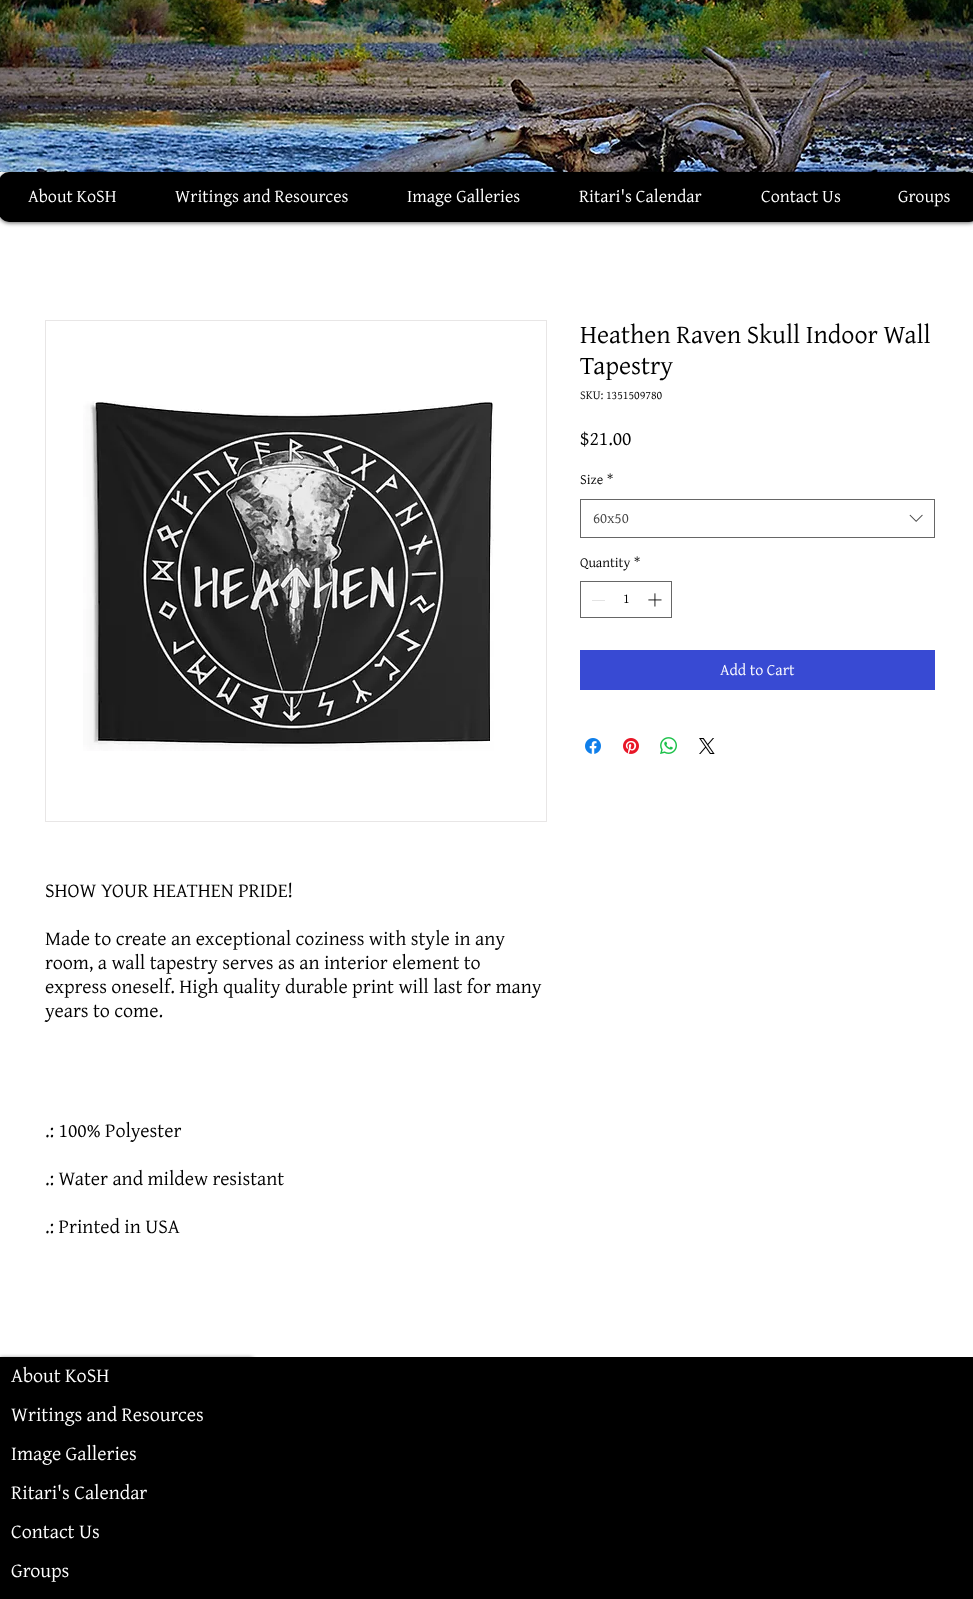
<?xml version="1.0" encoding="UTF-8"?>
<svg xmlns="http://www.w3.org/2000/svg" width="973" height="1599">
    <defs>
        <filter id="blur1" x="-50%" y="-200%" width="200%" height="500%"><feGaussianBlur stdDeviation="2"/></filter>
        <clipPath id="clip1"><path d="M 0 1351 H 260 V 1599 H 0 Z M 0 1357 H 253 V 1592 H 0 Z" clip-rule="evenodd"/></clipPath>
    </defs>
    <rect width="100%" height="100%" fill="#FFFFFF"/>
    <image x="0" y="0" width="973" height="172" href="img_01.png"/>
    <rect x="-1" y="173" width="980" height="50" rx="10" fill="#000000" fill-opacity="0.6" filter="url(#blur1)"/>
    <rect x="-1" y="172" width="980" height="50" rx="10" fill="#000000"/>
    <text x="28" y="202" font-family="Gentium" font-size="18" fill="#FFFFFF">About KoSH</text>
    <text x="175" y="202" font-family="Gentium" font-size="18" fill="#FFFFFF">Writings and Resources</text>
    <text x="407" y="202" font-family="Gentium" font-size="18" fill="#FFFFFF">Image Galleries</text>
    <text x="579" y="202" font-family="Gentium" font-size="18" fill="#FFFFFF">Ritari's Calendar</text>
    <text x="761" y="202" font-family="Gentium" font-size="18" fill="#FFFFFF">Contact Us</text>
    <text x="898" y="202" font-family="Gentium" font-size="18" fill="#FFFFFF">Groups</text>
    <text font-family="Gentium" font-size="26" fill="#000000">
        <tspan x="580" y="343">Heathen Raven Skull Indoor Wall</tspan>
        <tspan x="580" y="374">Tapestry</tspan>
    </text>
    <text x="580" y="399" font-family="Gentium" font-size="12" fill="#000000">SKU: 1351509780</text>
    <text x="580" y="445" font-family="Gentium" font-size="20" fill="#000000">$21.00</text>
    <text x="580" y="484" font-family="Gentium" font-size="14" fill="#000000">Size</text>
    <text x="607" y="484" font-family="Gentium" font-size="14" fill="#000000">*</text>
    <rect x="580.5" y="499.5" width="354" height="38" fill="none" stroke="#666666"/>
    <text x="593" y="523" font-family="Gentium" font-size="15" fill="#444444">60x50</text>
    <image x="909" y="514" width="14" height="8" href="img_02.png"/>
    <text x="580" y="567" font-family="Gentium" font-size="14" fill="#000000">Quantity</text>
    <text x="634" y="567" font-family="Gentium" font-size="14" fill="#000000">*</text>
    <rect x="580.5" y="581.5" width="91" height="36" fill="none" stroke="#666666"/>
    <rect x="592" y="600" width="13" height="1" fill="#E3E3E3"/>
    <text x="623" y="603" font-family="Gentium" font-size="14" fill="#000000">1</text>
    <image x="648" y="593" width="14" height="14" href="img_03.png"/>
    <rect x="580" y="650" width="355" height="40" fill="#384AD3"/>
    <text x="720" y="675" font-family="Gentium" font-size="16" fill="#FFFFFF">Add to Cart</text>
    <image x="585" y="738" width="16" height="16" href="img_04.png"/>
    <image x="623" y="738" width="16" height="16" href="img_05.png"/>
    <image x="660" y="737" width="17" height="17" href="img_06.png"/>
    <image x="699" y="738" width="16" height="16" href="img_07.png"/>
    <rect x="45.5" y="320.5" width="501" height="501" fill="none" stroke="#E8E6E6"/>
    <image x="83" y="401" width="411" height="350" href="img_08.png"/>
    <text x="45" y="897" font-family="Gentium" font-size="20" fill="#000000">SHOW YOUR HEATHEN PRIDE!</text>
    <text font-family="Gentium" font-size="20" fill="#000000">
        <tspan x="45" y="945">Made to create an exceptional coziness with style in any</tspan>
        <tspan x="45" y="969">room, a wall tapestry serves as an interior element to</tspan>
        <tspan x="45" y="993">express oneself. High quality durable print will last for many</tspan>
        <tspan x="45" y="1017">years to come.</tspan>
    </text>
    <text x="45" y="1137" font-family="Gentium" font-size="20" fill="#000000">.: 100% Polyester</text>
    <text x="45" y="1185" font-family="Gentium" font-size="20" fill="#000000">.: Water and mildew resistant</text>
    <text x="45" y="1233" font-family="Gentium" font-size="20" fill="#000000">.: Printed in USA</text>
    <rect x="0" y="1357" width="973" height="242" fill="#000000"/>
    <g clip-path="url(#clip1)">
        <rect x="0" y="1358" width="253" height="235" fill="#000000" fill-opacity="0.6" filter="url(#blur1)"/>
    </g>
    <text font-family="Gentium" font-size="20" fill="#FFFFFF">
        <tspan x="11" y="1382">About KoSH</tspan>
        <tspan x="11" y="1421">Writings and Resources</tspan>
        <tspan x="11" y="1460">Image Galleries</tspan>
        <tspan x="11" y="1499">Ritari's Calendar</tspan>
        <tspan x="11" y="1538">Contact Us</tspan>
        <tspan x="11" y="1577">Groups</tspan>
    </text>
</svg>
